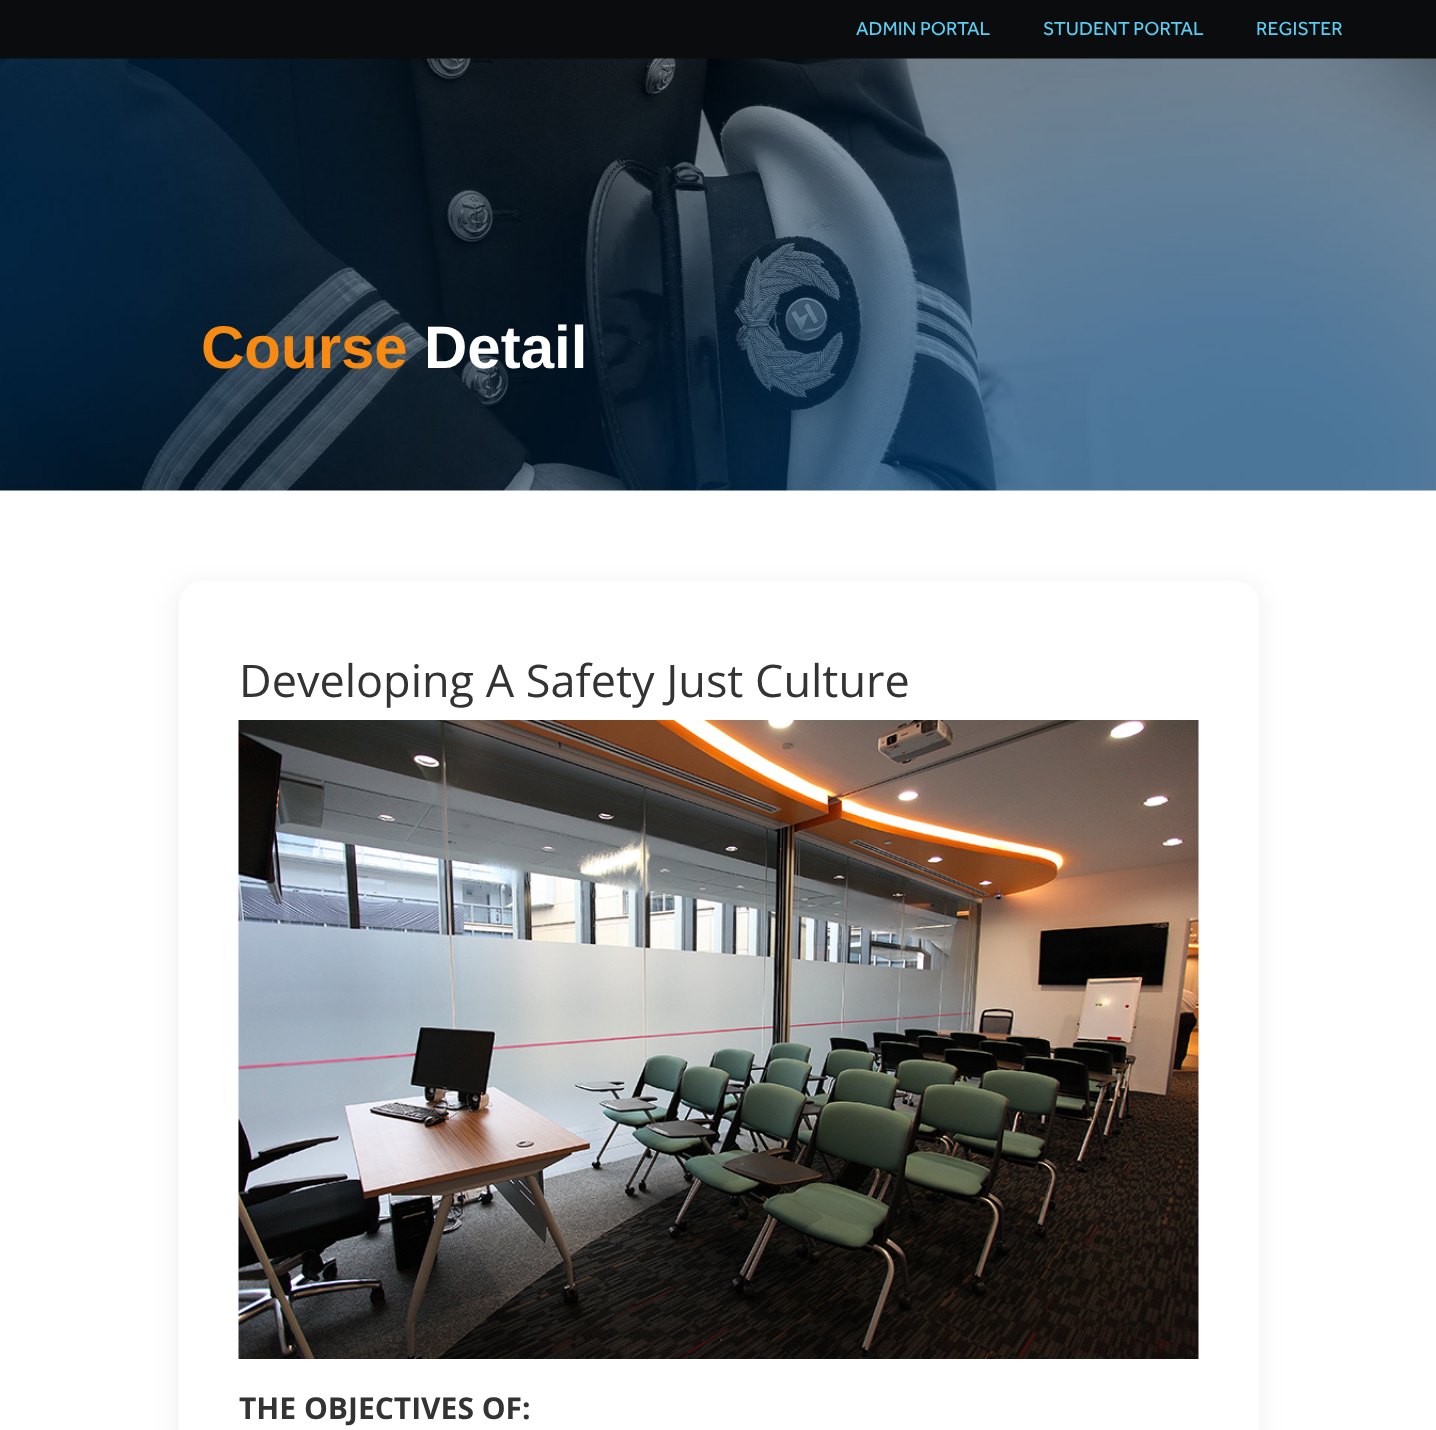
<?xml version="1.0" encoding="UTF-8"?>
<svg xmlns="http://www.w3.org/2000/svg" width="1436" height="1430">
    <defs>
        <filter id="blur1" x="-50%" y="-200%" width="200%" height="500%"><feGaussianBlur stdDeviation="12"/></filter>
    </defs>
    <rect width="100%" height="100%" fill="#FFFFFF"/>
    <rect x="0" y="0" width="1436" height="59" fill="#0A0C0D"/>
    <text x="856" y="35" font-family="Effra" font-size="19.5" fill="#5CCCF0">ADMIN PORTAL</text>
    <text x="1043" y="35" font-family="Effra" font-size="19.5" fill="#5CCCF0">STUDENT PORTAL</text>
    <text x="1256" y="35" font-family="Effra" font-size="19.5" fill="#5CCCF0">REGISTER</text>
    <image x="0" y="58" width="1436" height="433" href="img_01.png"/>
    <text x="201" y="368" font-family="Liberation Sans" font-size="60" font-weight="700" fill="#F78A13">Course</text>
    <text x="424" y="368" font-family="Liberation Sans" font-size="60" font-weight="700" fill="#FFFFFF">Detail</text>
    <rect x="174" y="582" width="1089" height="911" rx="27" fill="#000000" fill-opacity="0.05" filter="url(#blur1)"/>
    <rect x="179" y="581" width="1080" height="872" rx="23" fill="#FFFFFF"/>
    <text x="239" y="697" font-family="Open Sans" font-size="45" fill="#333333">Developing A Safety Just Culture</text>
    <image x="238" y="720" width="961" height="639" href="img_02.png"/>
    <text x="239" y="1419" font-family="Open Sans" font-size="30" font-weight="700" fill="#333333">THE OBJECTIVES OF:</text>
</svg>
